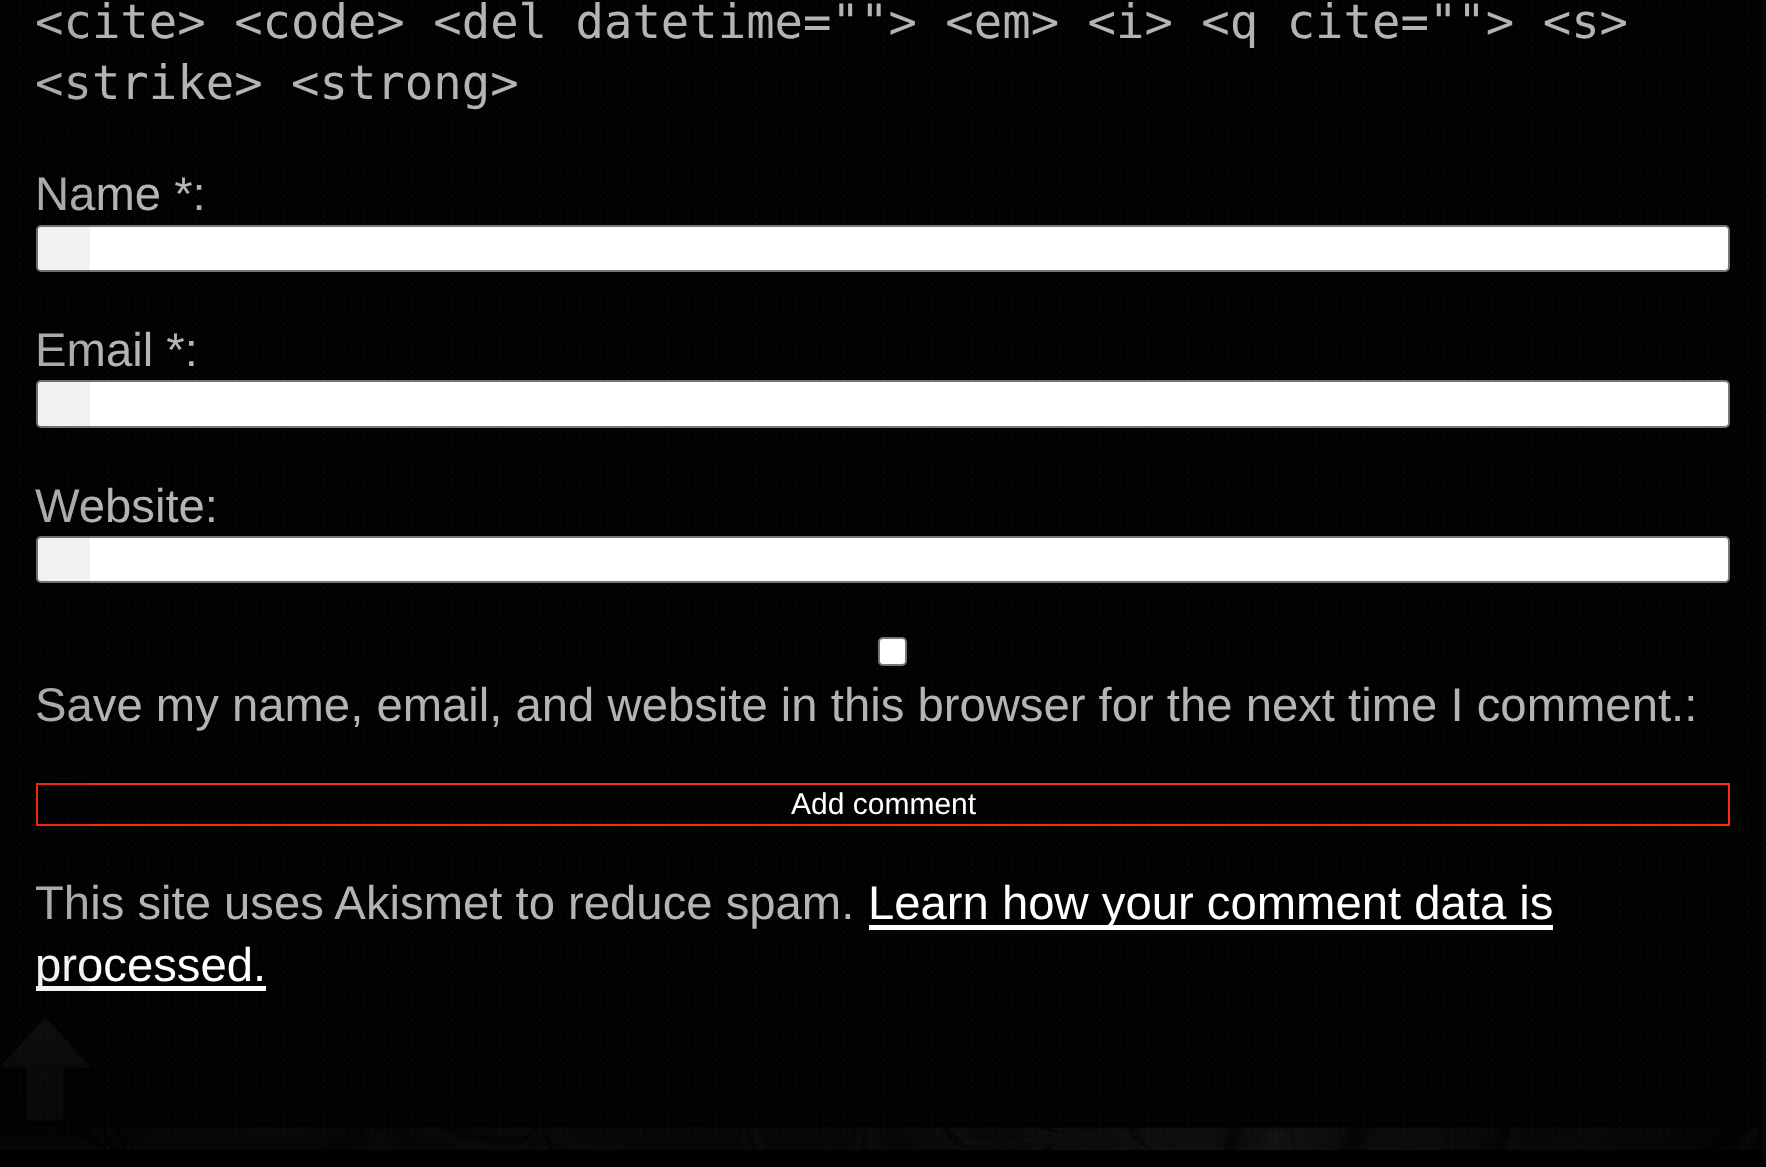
<?xml version="1.0" encoding="UTF-8"?>
<svg xmlns="http://www.w3.org/2000/svg" width="1766" height="1167">
    <rect width="100%" height="100%" fill="#FFFFFF"/>
    <image x="0" y="0" width="1766" height="1150" href="img_01.png"/>
    <text font-family="DejaVu Sans Mono" font-size="47.25" fill="#B4B4B4">
        <tspan x="35" y="38">&lt;cite&gt; &lt;code&gt; &lt;del datetime=""&gt; &lt;em&gt; &lt;i&gt; &lt;q cite=""&gt; &lt;s&gt;</tspan>
        <tspan x="35" y="99">&lt;strike&gt; &lt;strong&gt;</tspan>
    </text>
    <text x="35" y="210" font-family="Liberation Sans" font-size="47.25" fill="#B4B4B4">Name *:</text>
    <rect x="37" y="226" width="1692" height="45" rx="4" fill="#FFFFFF" stroke="#767676" stroke-width="2"/>
    <text x="35" y="366" font-family="Liberation Sans" font-size="47.25" fill="#B4B4B4">Email *:</text>
    <rect x="37" y="381" width="1692" height="46" rx="4" fill="#FFFFFF" stroke="#767676" stroke-width="2"/>
    <text x="35" y="522" font-family="Liberation Sans" font-size="47.25" fill="#B4B4B4">Website:</text>
    <rect x="37" y="537" width="1692" height="45" rx="4" fill="#FFFFFF" stroke="#767676" stroke-width="2"/>
    <rect x="879" y="638" width="27" height="27" rx="4" fill="#FFFFFF" stroke="#767676" stroke-width="2"/>
    <text x="35" y="721" font-family="Liberation Sans" font-size="47.25" fill="#B4B4B4">Save my name, email, and website in this browser for the next time I comment.:</text>
    <rect x="37" y="784" width="1692" height="41" fill="none" stroke="#FF290C" stroke-width="2"/>
    <text x="791" y="814" font-family="Liberation Sans" font-size="30" fill="#FFFFFF">Add comment</text>
    <text x="35" y="919" font-family="Liberation Sans" font-size="47.25" fill="#B4B4B4">This site uses Akismet to reduce spam.</text>
    <rect x="869" y="925" width="684" height="5" fill="#FFFFFF"/>
    <text x="868" y="919" font-family="Liberation Sans" font-size="47.25" fill="#FFFFFF">Learn how your comment data is</text>
    <rect x="36" y="986" width="230" height="5" fill="#FFFFFF"/>
    <text x="35" y="981" font-family="Liberation Sans" font-size="47.25" fill="#FFFFFF">processed.</text>
    <image x="0" y="1127" width="1759" height="23" href="img_02.png"/>
    <rect x="0" y="1150" width="1766" height="17" fill="#000000"/>
    <rect x="36" y="11" width="54" height="980" fill="#000000" fill-opacity="0.05"/>
    <image x="1" y="1017" width="89" height="104" href="img_03.png"/>
</svg>
